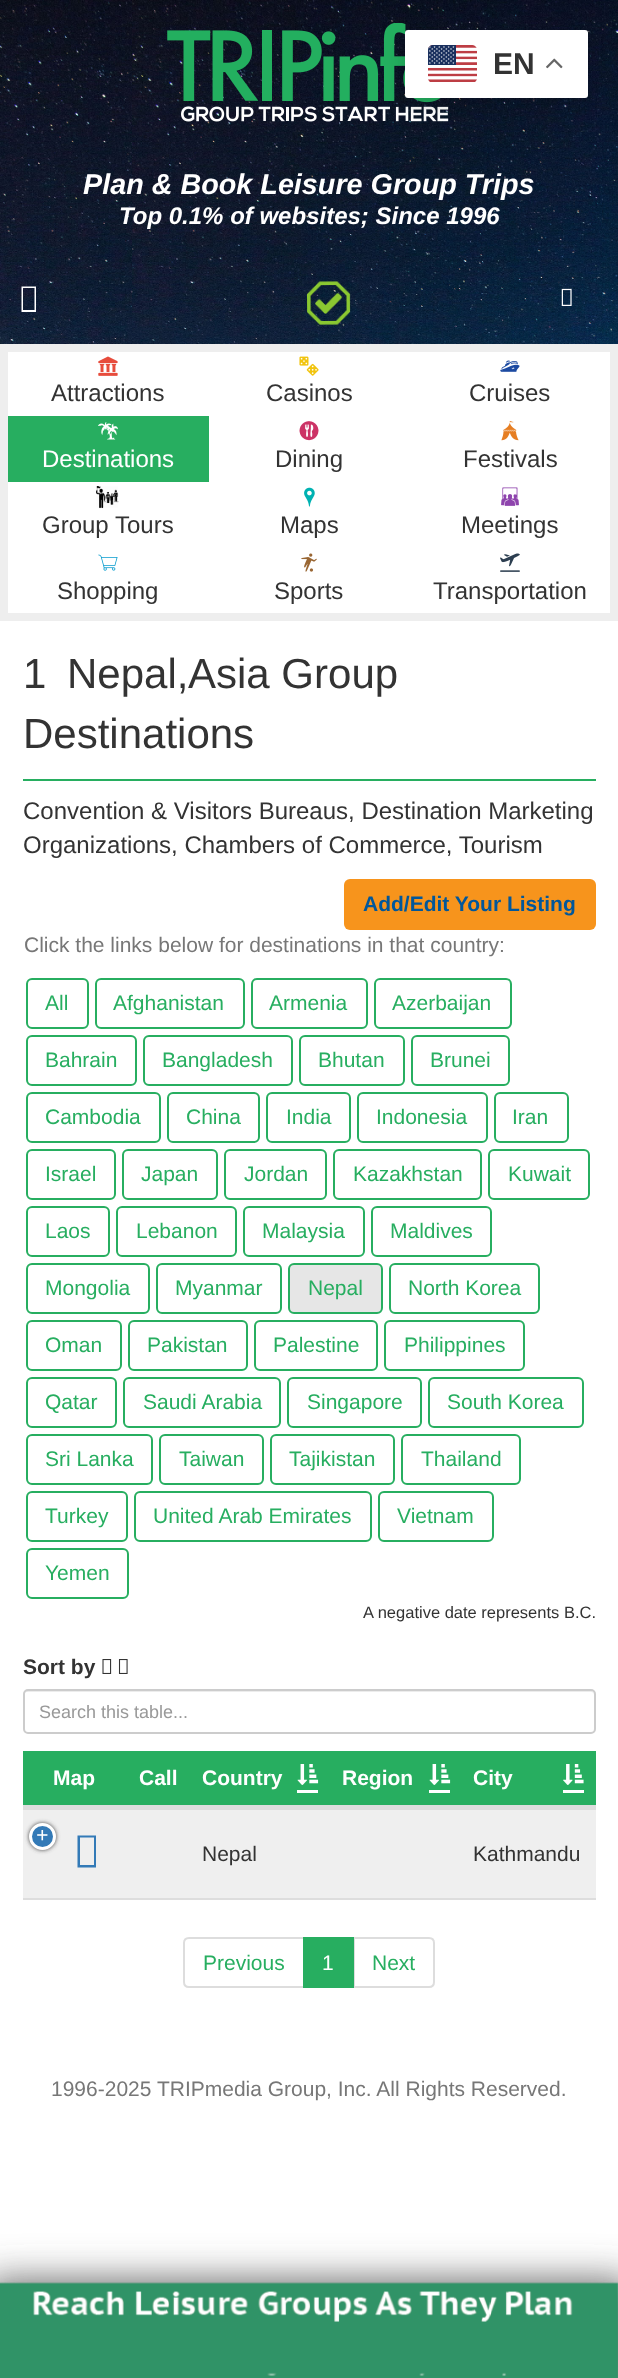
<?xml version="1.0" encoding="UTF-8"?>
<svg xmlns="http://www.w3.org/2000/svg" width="618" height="2378">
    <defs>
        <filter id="blur1" x="-50%" y="-200%" width="200%" height="500%"><feGaussianBlur stdDeviation="11"/></filter>
        <filter id="blur2" x="-50%" y="-200%" width="200%" height="500%"><feGaussianBlur stdDeviation="2"/></filter>
        <filter id="blur3" x="-50%" y="-200%" width="200%" height="500%"><feGaussianBlur stdDeviation="21"/></filter>
    </defs>
    <rect width="100%" height="100%" fill="#FFFFFF"/>
    <image x="0" y="0" width="618" height="344" href="img_03.png"/>
    <image x="167" y="23" width="282" height="99" href="img_04.png"/>
    <rect x="405" y="38" width="183" height="67" rx="3" fill="#000000" fill-opacity="0.15" filter="url(#blur1)"/>
    <rect x="405" y="30" width="183" height="68" rx="3" fill="#FFFFFF"/>
    <image x="428" y="45" width="49" height="37" href="img_01.png"/>
    <text x="493" y="74" font-family="Liberation Sans" font-size="30" font-weight="700" fill="#333333">EN</text>
    <image x="546" y="58" width="17" height="11" href="img_02.png"/>
    <text x="83" y="194" font-family="Liberation Sans" font-size="28.75" font-weight="700" font-style="italic" fill="#FFFFFF">Plan &amp; Book Leisure Group Trips</text>
    <text x="119" y="224" font-family="Liberation Sans" font-size="24" font-weight="700" font-style="italic" fill="#FFFFFF">Top 0.1% of websites; Since 1996</text>
    <path d="M 21.5 312 V 286.5 H 36 V 312 Z M 23 310 H 34.5 V 288 H 23 Z" fill="#FFFFFF"/>
    <image x="307" y="281" width="44" height="44" href="img_05.png"/>
    <image x="561" y="288" width="11" height="18" href="img_06.png"/>
    <rect x="4" y="348" width="610" height="269" fill="none" stroke="#EEEEEE" stroke-width="8"/>
    <image x="98" y="356" width="20" height="20" href="img_07.png"/>
    <text x="51" y="401" font-family="Liberation Sans" font-size="24" fill="#333333">Attractions</text>
    <image x="299" y="356" width="20" height="20" href="img_08.png"/>
    <text x="266" y="401" font-family="Liberation Sans" font-size="24" fill="#333333">Casinos</text>
    <image x="500" y="360" width="20" height="12" href="img_09.png"/>
    <text x="469" y="401" font-family="Liberation Sans" font-size="24" fill="#333333">Cruises</text>
    <rect x="8" y="416" width="201" height="66" fill="#27AE60"/>
    <image x="98" y="422" width="20" height="18" href="img_10.png"/>
    <text x="42" y="467" font-family="Liberation Sans" font-size="24" fill="#FFFFFF">Destinations</text>
    <image x="299" y="421" width="20" height="20" href="img_11.png"/>
    <text x="275" y="467" font-family="Liberation Sans" font-size="24" fill="#333333">Dining</text>
    <image x="501" y="421" width="18" height="20" href="img_12.png"/>
    <text x="463" y="467" font-family="Liberation Sans" font-size="24" fill="#333333">Festivals</text>
    <image x="96" y="486" width="23" height="23" href="img_13.png"/>
    <text x="42" y="533" font-family="Liberation Sans" font-size="24" fill="#333333">Group Tours</text>
    <image x="304" y="487" width="11" height="20" href="img_14.png"/>
    <text x="280" y="533" font-family="Liberation Sans" font-size="24" fill="#333333">Maps</text>
    <image x="501" y="487" width="18" height="19" href="img_15.png"/>
    <text x="461" y="533" font-family="Liberation Sans" font-size="24" fill="#333333">Meetings</text>
    <image x="98" y="554" width="20" height="17" href="img_16.png"/>
    <text x="57" y="599" font-family="Liberation Sans" font-size="24" fill="#333333">Shopping</text>
    <image x="301" y="553" width="16" height="19" href="img_17.png"/>
    <text x="274" y="599" font-family="Liberation Sans" font-size="24" fill="#333333">Sports</text>
    <image x="500" y="553" width="20" height="19" href="img_18.png"/>
    <text x="433" y="599" font-family="Liberation Sans" font-size="24" fill="#333333">Transportation</text>
    <rect x="23" y="779" width="573" height="2" fill="#27AE60"/>
    <text x="23" y="688" word-spacing="9" font-family="Liberation Sans" font-size="42" fill="#333333">1 Nepal,</text>
    <text x="188" y="688" font-family="Liberation Sans" font-size="42" fill="#333333">Asia Group</text>
    <text x="23" y="748" font-family="Liberation Sans" font-size="42" fill="#333333">Destinations</text>
    <text font-family="Liberation Sans" font-size="24" fill="#333333">
        <tspan x="23" y="819">Convention &amp; Visitors Bureaus, Destination Marketing</tspan>
        <tspan x="23" y="853">Organizations, Chambers of Commerce, Tourism</tspan>
    </text>
    <rect x="344" y="879" width="252" height="51" rx="6" fill="#F7941C"/>
    <text x="363" y="911" font-family="Liberation Sans" font-size="21" font-weight="700" fill="#01579B">Add/Edit Your Listing</text>
    <text x="24" y="952" font-family="Liberation Sans" font-size="21" fill="#777777">Click the links below for destinations in that country:</text>
    <rect x="27" y="979" width="61" height="49" rx="5" fill="none" stroke="#27AE60" stroke-width="2"/>
    <text x="45" y="1010" font-family="Liberation Sans" font-size="21" fill="#27AE60">All</text>
    <rect x="96" y="979" width="148" height="49" rx="5" fill="none" stroke="#27AE60" stroke-width="2"/>
    <text x="113" y="1010" font-family="Liberation Sans" font-size="21" fill="#27AE60">Afghanistan</text>
    <rect x="252" y="979" width="115" height="49" rx="5" fill="none" stroke="#27AE60" stroke-width="2"/>
    <text x="269" y="1010" font-family="Liberation Sans" font-size="21" fill="#27AE60">Armenia</text>
    <rect x="375" y="979" width="136" height="49" rx="5" fill="none" stroke="#27AE60" stroke-width="2"/>
    <text x="392" y="1010" font-family="Liberation Sans" font-size="21" fill="#27AE60">Azerbaijan</text>
    <rect x="27" y="1036" width="109" height="49" rx="5" fill="none" stroke="#27AE60" stroke-width="2"/>
    <text x="45" y="1067" font-family="Liberation Sans" font-size="21" fill="#27AE60">Bahrain</text>
    <rect x="144" y="1036" width="148" height="49" rx="5" fill="none" stroke="#27AE60" stroke-width="2"/>
    <text x="162" y="1067" font-family="Liberation Sans" font-size="21" fill="#27AE60">Bangladesh</text>
    <rect x="300" y="1036" width="104" height="49" rx="5" fill="none" stroke="#27AE60" stroke-width="2"/>
    <text x="318" y="1067" font-family="Liberation Sans" font-size="21" fill="#27AE60">Bhutan</text>
    <rect x="412" y="1036" width="97" height="49" rx="5" fill="none" stroke="#27AE60" stroke-width="2"/>
    <text x="430" y="1067" font-family="Liberation Sans" font-size="21" fill="#27AE60">Brunei</text>
    <rect x="27" y="1093" width="133" height="49" rx="5" fill="none" stroke="#27AE60" stroke-width="2"/>
    <text x="45" y="1124" font-family="Liberation Sans" font-size="21" fill="#27AE60">Cambodia</text>
    <rect x="168" y="1093" width="91" height="49" rx="5" fill="none" stroke="#27AE60" stroke-width="2"/>
    <text x="186" y="1124" font-family="Liberation Sans" font-size="21" fill="#27AE60">China</text>
    <rect x="267" y="1093" width="83" height="49" rx="5" fill="none" stroke="#27AE60" stroke-width="2"/>
    <text x="286" y="1124" font-family="Liberation Sans" font-size="21" fill="#27AE60">India</text>
    <rect x="358" y="1093" width="129" height="49" rx="5" fill="none" stroke="#27AE60" stroke-width="2"/>
    <text x="376" y="1124" font-family="Liberation Sans" font-size="21" fill="#27AE60">Indonesia</text>
    <rect x="495" y="1093" width="73" height="49" rx="5" fill="none" stroke="#27AE60" stroke-width="2"/>
    <text x="512" y="1124" font-family="Liberation Sans" font-size="21" fill="#27AE60">Iran</text>
    <rect x="27" y="1150" width="88" height="49" rx="5" fill="none" stroke="#27AE60" stroke-width="2"/>
    <text x="45" y="1181" font-family="Liberation Sans" font-size="21" fill="#27AE60">Israel</text>
    <rect x="123" y="1150" width="94" height="49" rx="5" fill="none" stroke="#27AE60" stroke-width="2"/>
    <text x="141" y="1181" font-family="Liberation Sans" font-size="21" fill="#27AE60">Japan</text>
    <rect x="225" y="1150" width="101" height="49" rx="5" fill="none" stroke="#27AE60" stroke-width="2"/>
    <text x="244" y="1181" font-family="Liberation Sans" font-size="21" fill="#27AE60">Jordan</text>
    <rect x="334" y="1150" width="147" height="49" rx="5" fill="none" stroke="#27AE60" stroke-width="2"/>
    <text x="353" y="1181" font-family="Liberation Sans" font-size="21" fill="#27AE60">Kazakhstan</text>
    <rect x="489" y="1150" width="100" height="49" rx="5" fill="none" stroke="#27AE60" stroke-width="2"/>
    <text x="508" y="1181" font-family="Liberation Sans" font-size="21" fill="#27AE60">Kuwait</text>
    <rect x="27" y="1207" width="82" height="49" rx="5" fill="none" stroke="#27AE60" stroke-width="2"/>
    <text x="45" y="1238" font-family="Liberation Sans" font-size="21" fill="#27AE60">Laos</text>
    <rect x="117" y="1207" width="119" height="49" rx="5" fill="none" stroke="#27AE60" stroke-width="2"/>
    <text x="136" y="1238" font-family="Liberation Sans" font-size="21" fill="#27AE60">Lebanon</text>
    <rect x="244" y="1207" width="120" height="49" rx="5" fill="none" stroke="#27AE60" stroke-width="2"/>
    <text x="262" y="1238" font-family="Liberation Sans" font-size="21" fill="#27AE60">Malaysia</text>
    <rect x="372" y="1207" width="119" height="49" rx="5" fill="none" stroke="#27AE60" stroke-width="2"/>
    <text x="390" y="1238" font-family="Liberation Sans" font-size="21" fill="#27AE60">Maldives</text>
    <rect x="27" y="1264" width="122" height="49" rx="5" fill="none" stroke="#27AE60" stroke-width="2"/>
    <text x="45" y="1295" font-family="Liberation Sans" font-size="21" fill="#27AE60">Mongolia</text>
    <rect x="157" y="1264" width="124" height="49" rx="5" fill="none" stroke="#27AE60" stroke-width="2"/>
    <text x="175" y="1295" font-family="Liberation Sans" font-size="21" fill="#27AE60">Myanmar</text>
    <rect x="289" y="1264" width="93" height="49" rx="5" fill="#E6E6E6" stroke="#27AE60" stroke-width="2"/>
    <text x="308" y="1295" font-family="Liberation Sans" font-size="21" fill="#27AE60">Nepal</text>
    <rect x="390" y="1264" width="149" height="49" rx="5" fill="none" stroke="#27AE60" stroke-width="2"/>
    <text x="408" y="1295" font-family="Liberation Sans" font-size="21" fill="#27AE60">North Korea</text>
    <rect x="27" y="1321" width="94" height="49" rx="5" fill="none" stroke="#27AE60" stroke-width="2"/>
    <text x="45" y="1352" font-family="Liberation Sans" font-size="21" fill="#27AE60">Oman</text>
    <rect x="129" y="1321" width="118" height="49" rx="5" fill="none" stroke="#27AE60" stroke-width="2"/>
    <text x="147" y="1352" font-family="Liberation Sans" font-size="21" fill="#27AE60">Pakistan</text>
    <rect x="255" y="1321" width="122" height="49" rx="5" fill="none" stroke="#27AE60" stroke-width="2"/>
    <text x="273" y="1352" font-family="Liberation Sans" font-size="21" fill="#27AE60">Palestine</text>
    <rect x="385" y="1321" width="139" height="49" rx="5" fill="none" stroke="#27AE60" stroke-width="2"/>
    <text x="404" y="1352" font-family="Liberation Sans" font-size="21" fill="#27AE60">Philippines</text>
    <rect x="27" y="1378" width="89" height="49" rx="5" fill="none" stroke="#27AE60" stroke-width="2"/>
    <text x="45" y="1409" font-family="Liberation Sans" font-size="21" fill="#27AE60">Qatar</text>
    <rect x="124" y="1378" width="156" height="49" rx="5" fill="none" stroke="#27AE60" stroke-width="2"/>
    <text x="143" y="1409" font-family="Liberation Sans" font-size="21" fill="#27AE60">Saudi Arabia</text>
    <rect x="288" y="1378" width="133" height="49" rx="5" fill="none" stroke="#27AE60" stroke-width="2"/>
    <text x="307" y="1409" font-family="Liberation Sans" font-size="21" fill="#27AE60">Singapore</text>
    <rect x="429" y="1378" width="154" height="49" rx="5" fill="none" stroke="#27AE60" stroke-width="2"/>
    <text x="447" y="1409" font-family="Liberation Sans" font-size="21" fill="#27AE60">South Korea</text>
    <rect x="27" y="1435" width="125" height="49" rx="5" fill="none" stroke="#27AE60" stroke-width="2"/>
    <text x="45" y="1466" font-family="Liberation Sans" font-size="21" fill="#27AE60">Sri Lanka</text>
    <rect x="160" y="1435" width="103" height="49" rx="5" fill="none" stroke="#27AE60" stroke-width="2"/>
    <text x="179" y="1466" font-family="Liberation Sans" font-size="21" fill="#27AE60">Taiwan</text>
    <rect x="271" y="1435" width="123" height="49" rx="5" fill="none" stroke="#27AE60" stroke-width="2"/>
    <text x="289" y="1466" font-family="Liberation Sans" font-size="21" fill="#27AE60">Tajikistan</text>
    <rect x="402" y="1435" width="118" height="49" rx="5" fill="none" stroke="#27AE60" stroke-width="2"/>
    <text x="421" y="1466" font-family="Liberation Sans" font-size="21" fill="#27AE60">Thailand</text>
    <rect x="27" y="1492" width="100" height="49" rx="5" fill="none" stroke="#27AE60" stroke-width="2"/>
    <text x="45" y="1523" font-family="Liberation Sans" font-size="21" fill="#27AE60">Turkey</text>
    <rect x="135" y="1492" width="236" height="49" rx="5" fill="none" stroke="#27AE60" stroke-width="2"/>
    <text x="153" y="1523" font-family="Liberation Sans" font-size="21" fill="#27AE60">United Arab Emirates</text>
    <rect x="379" y="1492" width="114" height="49" rx="5" fill="none" stroke="#27AE60" stroke-width="2"/>
    <text x="397" y="1523" font-family="Liberation Sans" font-size="21" fill="#27AE60">Vietnam</text>
    <rect x="27" y="1549" width="101" height="49" rx="5" fill="none" stroke="#27AE60" stroke-width="2"/>
    <text x="45" y="1580" font-family="Liberation Sans" font-size="21" fill="#27AE60">Yemen</text>
    <text x="363" y="1618" font-family="Liberation Sans" font-size="16.5" fill="#333333">A negative date represents B.C.</text>
    <text x="23" y="1674" font-family="Liberation Sans" font-size="21" font-weight="700" fill="#333333">Sort by</text>
    <image x="102" y="1659" width="10" height="15" href="img_19.png"/>
    <image x="118" y="1659" width="10" height="15" href="img_20.png"/>
    <path d="M 27 1692 H 591 C 593 1692 594 1693 594 1695 V 1694 C 594 1692 593 1691 591 1691 H 27 C 25 1691 24 1692 24 1694 V 1695 C 24 1693 25 1692 27 1692 Z" fill="#ECECEC"/>
    <rect x="24" y="1690" width="571" height="43" rx="4" fill="none" stroke="#CCCCCC" stroke-width="2"/>
    <text x="39" y="1718" font-family="Liberation Sans" font-size="18" fill="#999999">Search this table...</text>
    <rect x="23" y="1751" width="573" height="54" fill="#27AE60"/>
    <rect x="23" y="1805" width="573" height="3" fill="#DDDDDD"/>
    <text x="53" y="1785" font-family="Liberation Sans" font-size="21" font-weight="700" fill="#FFFFFF">Map</text>
    <text x="139" y="1785" font-family="Liberation Sans" font-size="21" font-weight="700" fill="#FFFFFF">Call</text>
    <text x="202" y="1785" font-family="Liberation Sans" font-size="21" font-weight="700" fill="#FFFFFF">Country</text>
    <rect x="297" y="1790" width="21" height="3" fill="#FFFFFF"/>
    <image x="297" y="1764" width="22" height="21" href="img_21.png"/>
    <text x="342" y="1785" font-family="Liberation Sans" font-size="21" font-weight="700" fill="#FFFFFF">Region</text>
    <rect x="429" y="1790" width="21" height="3" fill="#FFFFFF"/>
    <image x="429" y="1764" width="22" height="21" href="img_21.png"/>
    <text x="473" y="1785" font-family="Liberation Sans" font-size="21" font-weight="700" fill="#FFFFFF">City</text>
    <rect x="563" y="1790" width="21" height="3" fill="#FFFFFF"/>
    <image x="563" y="1764" width="21" height="21" href="img_22.png"/>
    <rect x="23" y="1810" width="573" height="88" fill="#EFEFEF"/>
    <rect x="23" y="1808" width="573" height="2" fill="#DDDDDD"/>
    <rect x="29" y="1823" width="27" height="27" rx="13.5" fill="#444444" filter="url(#blur2)"/>
    <circle cx="42.5" cy="1836.5" r="12" fill="#337AB7" stroke="#FFFFFF" stroke-width="3"/>
    <text x="36" y="1842" font-family="Liberation Mono" font-size="21" fill="#FFFFFF">+</text>
    <path d="M 77.5 1867.5 V 1835.5 H 96 V 1867.5 Z M 80 1865 H 94 V 1837.5 H 80 Z" fill="#337AB7"/>
    <text x="202" y="1861" font-family="Liberation Sans" font-size="21" fill="#333333">Nepal</text>
    <text x="473" y="1861" font-family="Liberation Sans" font-size="21" fill="#333333">Kathmandu</text>
    <rect x="23" y="1898" width="573" height="2" fill="#DDDDDD"/>
    <path d="M 189 1938 H 304 V 1987 H 189 C 186 1987 184 1985 184 1982 V 1943 C 184 1940 186 1938 189 1938 Z" fill="none" stroke="#DDDDDD" stroke-width="2"/>
    <text x="203" y="1970" font-family="Liberation Sans" font-size="21" fill="#27AE60">Previous</text>
    <path d="M 354 1938 H 429 C 432 1938 434 1940 434 1943 V 1982 C 434 1985 432 1987 429 1987 H 354 Z" fill="none" stroke="#DDDDDD" stroke-width="2"/>
    <rect x="303" y="1937" width="51" height="51" fill="#27AE60"/>
    <text x="322" y="1970" font-family="Liberation Sans" font-size="21" fill="#FFFFFF">1</text>
    <text x="372" y="1970" font-family="Liberation Sans" font-size="21" fill="#27AE60">Next</text>
    <text x="51" y="2096" font-family="Liberation Sans" font-size="21" fill="#777777">1996-2025 TRIPmedia Group, Inc. All Rights Reserved.</text>
    <rect x="-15" y="2283" width="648" height="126" fill="#555555" filter="url(#blur3)"/>
    <image x="0" y="2282" width="618" height="96" href="img_23.png"/>
</svg>
